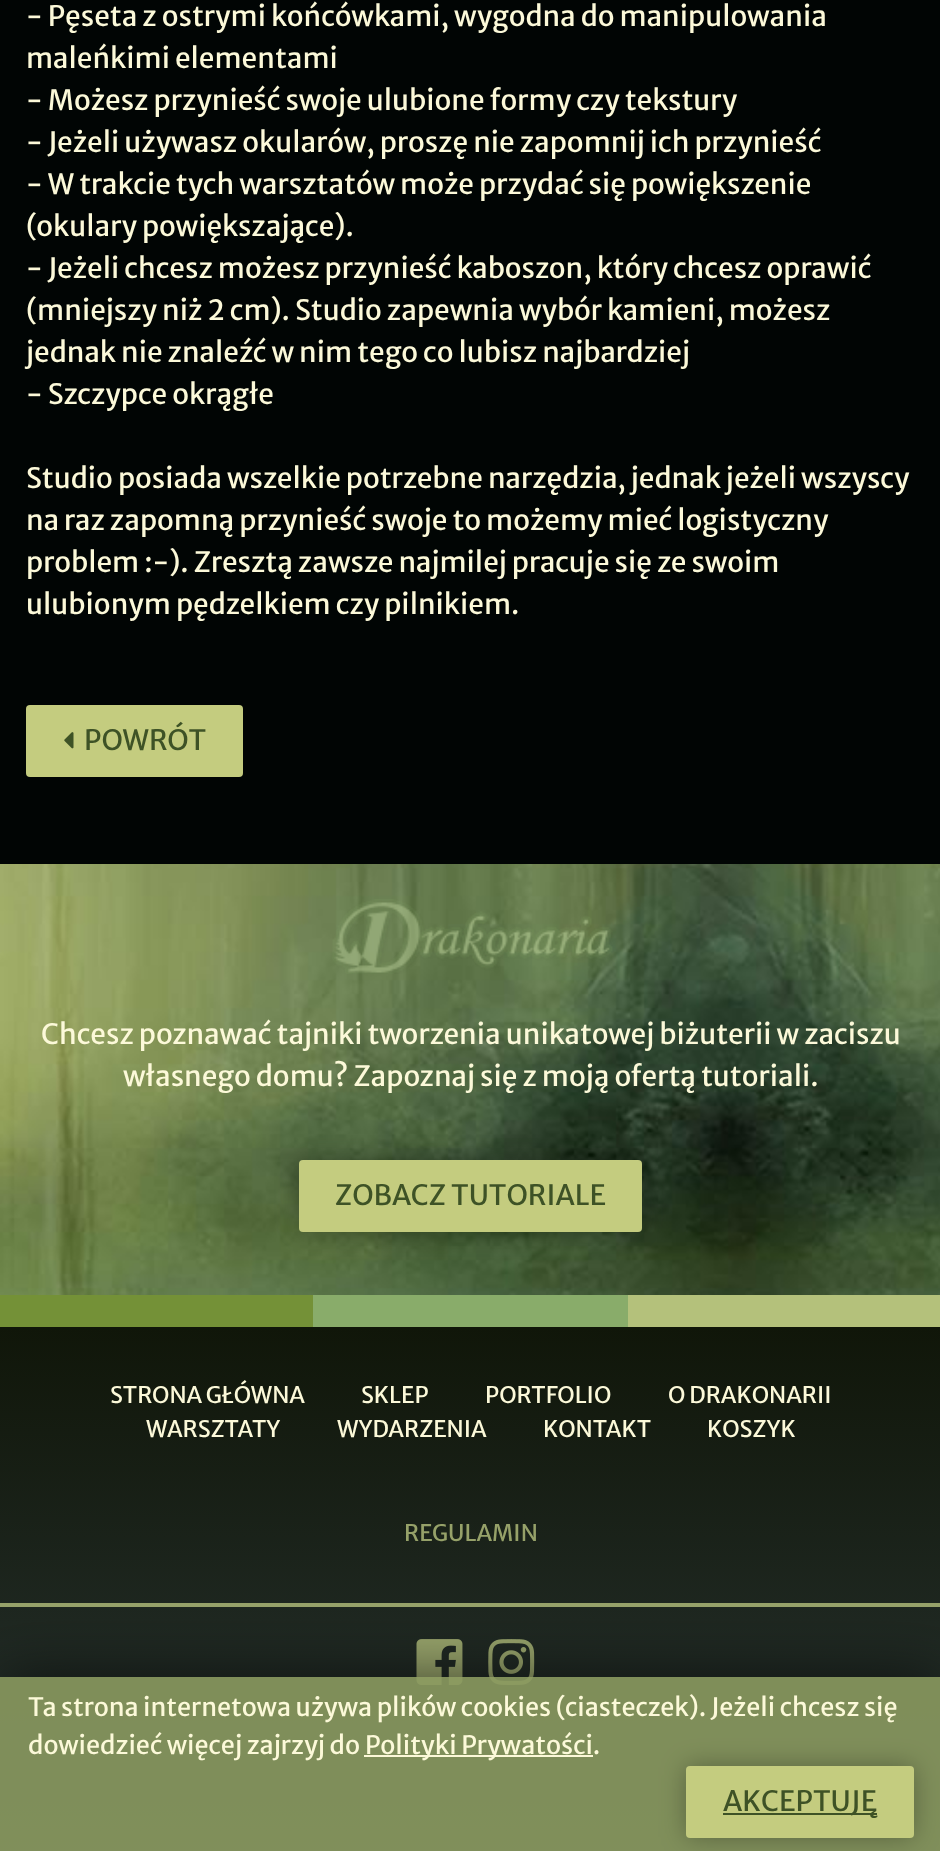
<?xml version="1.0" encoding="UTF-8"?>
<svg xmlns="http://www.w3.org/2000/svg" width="940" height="1851">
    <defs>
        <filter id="blur1" x="-50%" y="-200%" width="200%" height="500%"><feGaussianBlur stdDeviation="13"/></filter>
        <linearGradient id="g1" gradientUnits="userSpaceOnUse" x1="471" y1="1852" x2="471" y2="1327"><stop offset="0" stop-color="#293432"/><stop offset="1" stop-color="#101609"/></linearGradient>
        <clipPath id="clip1"><rect x="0" y="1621" width="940" height="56"/></clipPath>
        <filter id="blur2" x="-50%" y="-200%" width="200%" height="500%"><feGaussianBlur stdDeviation="30.5"/></filter>
    </defs>
    <rect width="100%" height="100%" fill="#010504"/>
    <text font-family="Merriweather Sans" font-size="28" fill="#FCF9D9">
        <tspan x="26" y="26">- Pęseta z ostrymi końcówkami, wygodna do manipulowania</tspan>
        <tspan x="26" y="68">maleńkimi elementami</tspan>
        <tspan x="26" y="110">- Możesz przynieść swoje ulubione formy czy tekstury</tspan>
        <tspan x="26" y="152">- Jeżeli używasz okularów, proszę nie zapomnij ich przynieść</tspan>
        <tspan x="26" y="194">- W trakcie tych warsztatów może przydać się powiększenie</tspan>
        <tspan x="26" y="236">(okulary powiększające).</tspan>
        <tspan x="26" y="278">- Jeżeli chcesz możesz przynieść kaboszon, który chcesz oprawić</tspan>
        <tspan x="26" y="320">(mniejszy niż 2 cm). Studio zapewnia wybór kamieni, możesz</tspan>
        <tspan x="26" y="362">jednak nie znaleźć w nim tego co lubisz najbardziej</tspan>
        <tspan x="26" y="404">- Szczypce okrągłe</tspan>
    </text>
    <text font-family="Merriweather Sans" font-size="28" fill="#FCF9D9">
        <tspan x="26" y="488">Studio posiada wszelkie potrzebne narzędzia, jednak jeżeli wszyscy</tspan>
        <tspan x="26" y="530">na raz zapomną przynieść swoje to możemy mieć logistyczny</tspan>
        <tspan x="26" y="572">problem :-). Zresztą zawsze najmilej pracuje się ze swoim</tspan>
        <tspan x="26" y="614">ulubionym pędzelkiem czy pilnikiem.</tspan>
    </text>
    <rect x="26" y="705" width="217" height="72" rx="4" fill="#C4CC7F"/>
    <image x="64" y="732" width="10" height="17" href="img_01.png"/>
    <text x="84" y="750" font-family="Merriweather Sans" font-size="28" fill="#3E5226">POWRÓT</text>
    <image x="0" y="864" width="940" height="431" href="img_02.png"/>
    <image x="332" y="899" width="281" height="75" href="img_03.png"/>
    <text x="41" y="1044" font-family="Merriweather Sans" font-size="28" fill="#FCF9D9">Chcesz poznawać tajniki tworzenia unikatowej biżuterii w zaciszu</text>
    <text x="123" y="1086" font-family="Merriweather Sans" font-size="28" fill="#FCF9D9">własnego domu? Zapoznaj się z moją ofertą tutoriali.</text>
    <rect x="299" y="1160" width="343" height="72" rx="4" fill="#000000" fill-opacity="0.3" filter="url(#blur1)"/>
    <rect x="299" y="1160" width="343" height="72" rx="4" fill="#C4CC7F"/>
    <text x="335" y="1205" font-family="Merriweather Sans" font-size="28" fill="#3E5226">ZOBACZ TUTORIALE</text>
    <rect x="0" y="1295" width="313" height="32" fill="#749137"/>
    <rect x="313" y="1295" width="315" height="32" fill="#89AC6A"/>
    <rect x="628" y="1295" width="312" height="32" fill="#B4C17B"/>
    <rect x="0" y="1327" width="940" height="524" fill="url(#g1)"/>
    <text x="110" y="1403" font-family="Merriweather Sans" font-size="22.75" fill="#FCF9D9">STRONA GŁÓWNA</text>
    <text x="361" y="1403" font-family="Merriweather Sans" font-size="22.75" fill="#FCF9D9">SKLEP</text>
    <text x="485" y="1403" font-family="Merriweather Sans" font-size="22.75" fill="#FCF9D9">PORTFOLIO</text>
    <text x="668" y="1403" font-family="Merriweather Sans" font-size="22.75" fill="#FCF9D9">O DRAKONARII</text>
    <text x="146" y="1437" font-family="Merriweather Sans" font-size="22.75" fill="#FCF9D9">WARSZTATY</text>
    <text x="337" y="1437" font-family="Merriweather Sans" font-size="22.75" fill="#FCF9D9">WYDARZENIA</text>
    <text x="543" y="1437" font-family="Merriweather Sans" font-size="22.75" fill="#FCF9D9">KONTAKT</text>
    <text x="707" y="1437" font-family="Merriweather Sans" font-size="22.75" fill="#FCF9D9">KOSZYK</text>
    <text x="404" y="1541" font-family="Merriweather Sans" font-size="22.75" fill="#96A169">REGULAMIN</text>
    <rect x="0" y="1603" width="940" height="4" fill="#96A169"/>
    <image x="416" y="1639" width="47" height="46" href="img_04.png"/>
    <image x="488" y="1639" width="47" height="46" href="img_05.png"/>
    <g clip-path="url(#clip1)">
        <rect x="0" y="1677" width="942" height="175" fill="#000000" fill-opacity="0.6" filter="url(#blur2)"/>
    </g>
    <rect x="0" y="1677" width="940" height="174" fill="#8A995F" fill-opacity="0.9"/>
    <text font-family="Merriweather Sans" font-size="25.2" fill="#FCF9D9">
        <tspan x="28" y="1716">Ta strona internetowa używa plików cookies (ciasteczek). Jeżeli chcesz się</tspan>
        <tspan x="28" y="1754">dowiedzieć więcej zajrzyj do</tspan>
    </text>
    <rect x="364" y="1755" width="229" height="2" fill="#FCF8D8"/>
    <text x="365" y="1754" font-family="Merriweather Sans" font-size="25.2" fill="#FCF9D9">Polityki Prywatości.</text>
    <rect x="686" y="1766" width="228" height="72" rx="4" fill="#000000" fill-opacity="0.3" filter="url(#blur1)"/>
    <rect x="686" y="1766" width="228" height="72" rx="4" fill="#C4CC7F"/>
    <rect x="723" y="1813" width="154" height="2" fill="#3E5226"/>
    <text x="723" y="1811" font-family="Merriweather Sans" font-size="28" fill="#3E5226">AKCEPTUJĘ</text>
</svg>
